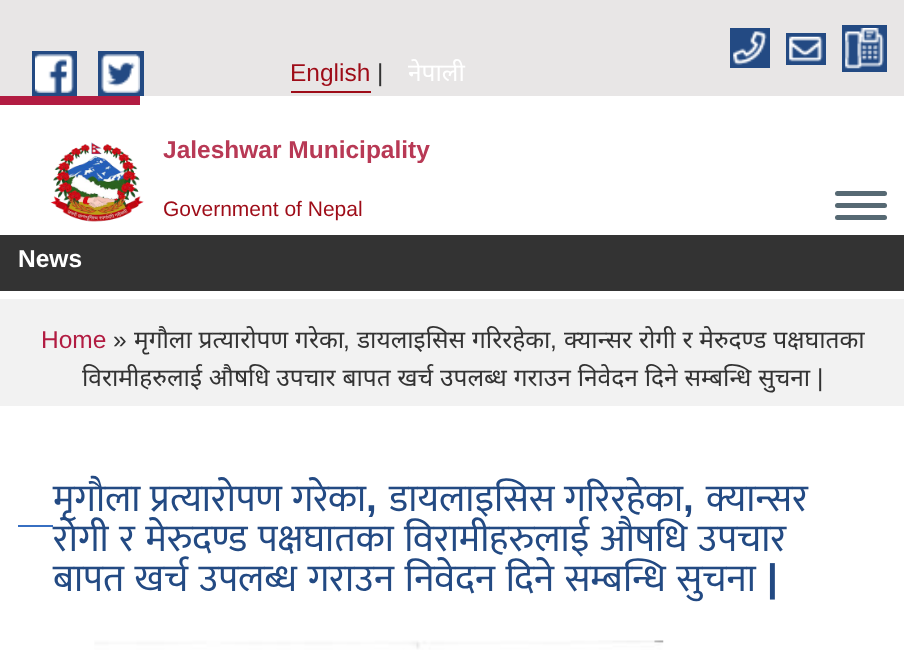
<?xml version="1.0" encoding="UTF-8"?>
<svg xmlns="http://www.w3.org/2000/svg" width="904" height="650">
    <rect width="100%" height="100%" fill="#FFFFFF"/>
    <rect x="0" y="0" width="904" height="96" fill="#E8E6E6"/>
    <rect x="32" y="51" width="45" height="45" fill="#234A83"/>
    <rect x="98" y="51" width="46" height="45" fill="#234A83"/>
    <image x="35" y="54" width="39" height="39" href="img_01.png"/>
    <image x="101" y="54" width="39" height="39" href="img_02.png"/>
    <rect x="291" y="91" width="80" height="2" fill="#9E0C18"/>
    <text x="290" y="81" font-family="Liberation Sans" font-size="24.5" fill="#9E0C18">English</text>
    <text x="377" y="81" font-family="Liberation Sans" font-size="24.5" fill="#333333">|</text>
    <text x="408" y="81" font-family="Noto Sans" font-size="24.5" fill="#FFFFFF">नेपाली</text>
    <rect x="730" y="28" width="40" height="40" fill="#234A83"/>
    <rect x="842" y="25" width="45" height="47" fill="#234A83"/>
    <image x="733" y="31" width="34" height="34" href="img_03.png"/>
    <rect x="786" y="33" width="40" height="32" fill="#234A83"/>
    <image x="845" y="28" width="39" height="41" href="img_04.png"/>
    <image x="789" y="36" width="34" height="26" href="img_05.png"/>
    <rect x="0" y="96" width="140" height="9" fill="#B21C42"/>
    <image x="50" y="142" width="94" height="80" href="img_06.png"/>
    <text x="163" y="158" font-family="Liberation Sans" font-size="24.5" font-weight="700" fill="#B83955">Jaleshwar Municipality</text>
    <text x="163" y="216" font-family="Liberation Sans" font-size="21" fill="#9E0C18">Government of Nepal</text>
    <rect x="835" y="191" width="52" height="5" rx="2.5" fill="#566973"/>
    <rect x="835" y="203" width="52" height="5" rx="2.5" fill="#566973"/>
    <rect x="835" y="215" width="52" height="5" rx="2.5" fill="#566973"/>
    <rect x="0" y="235" width="904" height="56" fill="#333333"/>
    <text x="18" y="267" font-family="Liberation Sans" font-size="24.5" font-weight="700" fill="#FFFFFF">News</text>
    <rect x="0" y="299" width="904" height="107" fill="#F2F2F2"/>
    <text x="41" y="348" font-family="Liberation Sans" font-size="24.5" fill="#B21C42">Home</text>
    <text x="113" y="348" font-family="Liberation Sans" font-size="24.5" fill="#333333">»</text>
    <text x="134" y="348" word-spacing="0.5" font-family="Noto Sans" font-size="24.5" fill="#333333">मृगौला प्रत्यारोपण गरेका</text>
    <text x="357" y="348" word-spacing="0.5" font-family="Noto Sans" font-size="24.5" fill="#333333">डायलाइसिस गरिरहेका</text>
    <text x="564" y="348" word-spacing="0.5" font-family="Noto Sans" font-size="24.5" fill="#333333">क्यान्सर रोगी र मेरुदण्ड पक्षघातका</text>
    <text x="343" y="348" font-family="Liberation Sans" font-size="24.5" fill="#333333">,</text>
    <text x="550" y="348" font-family="Liberation Sans" font-size="24.5" fill="#333333">,</text>
    <text x="82" y="386" word-spacing="0.5" font-family="Noto Sans" font-size="24.5" fill="#333333">विरामीहरुलाई औषधि उपचार बापत खर्च उपलब्ध गराउन निवेदन दिने सम्बन्धि सुचना</text>
    <text x="817" y="386" font-family="Liberation Sans" font-size="24.5" fill="#333333">|</text>
    <rect x="18" y="525" width="35" height="2" fill="#376FC2"/>
    <text x="53" y="511" word-spacing="1" font-family="Mukta" font-size="38.5" fill="#234A83">मृगौला प्रत्यारोपण गरेका</text>
    <text x="366" y="511" font-family="Liberation Sans" font-size="38.5" font-weight="700" fill="#234A83">,</text>
    <text x="389" y="511" word-spacing="1" font-family="Mukta" font-size="38.5" fill="#234A83">डायलाइसिस गरिरहेका</text>
    <text x="683" y="511" font-family="Liberation Sans" font-size="38.5" font-weight="700" fill="#234A83">,</text>
    <text x="706" y="511" font-family="Mukta" font-size="38.5" fill="#234A83">क्यान्सर</text>
    <text font-family="Mukta" font-size="38.5" fill="#234A83">
        <tspan x="53" y="551" word-spacing="2">रोगी र मेरुदण्ड पक्षघातका विरामीहरुलाई औषधि उपचार</tspan>
        <tspan x="53" y="591" word-spacing="2">बापत खर्च उपलब्ध गराउन निवेदन दिने सम्बन्धि सुचना</tspan>
    </text>
    <text x="767" y="591" font-family="Liberation Sans" font-size="38.5" font-weight="700" fill="#234A83">|</text>
    <image x="94" y="640" width="570" height="10" href="img_07.png"/>
</svg>
